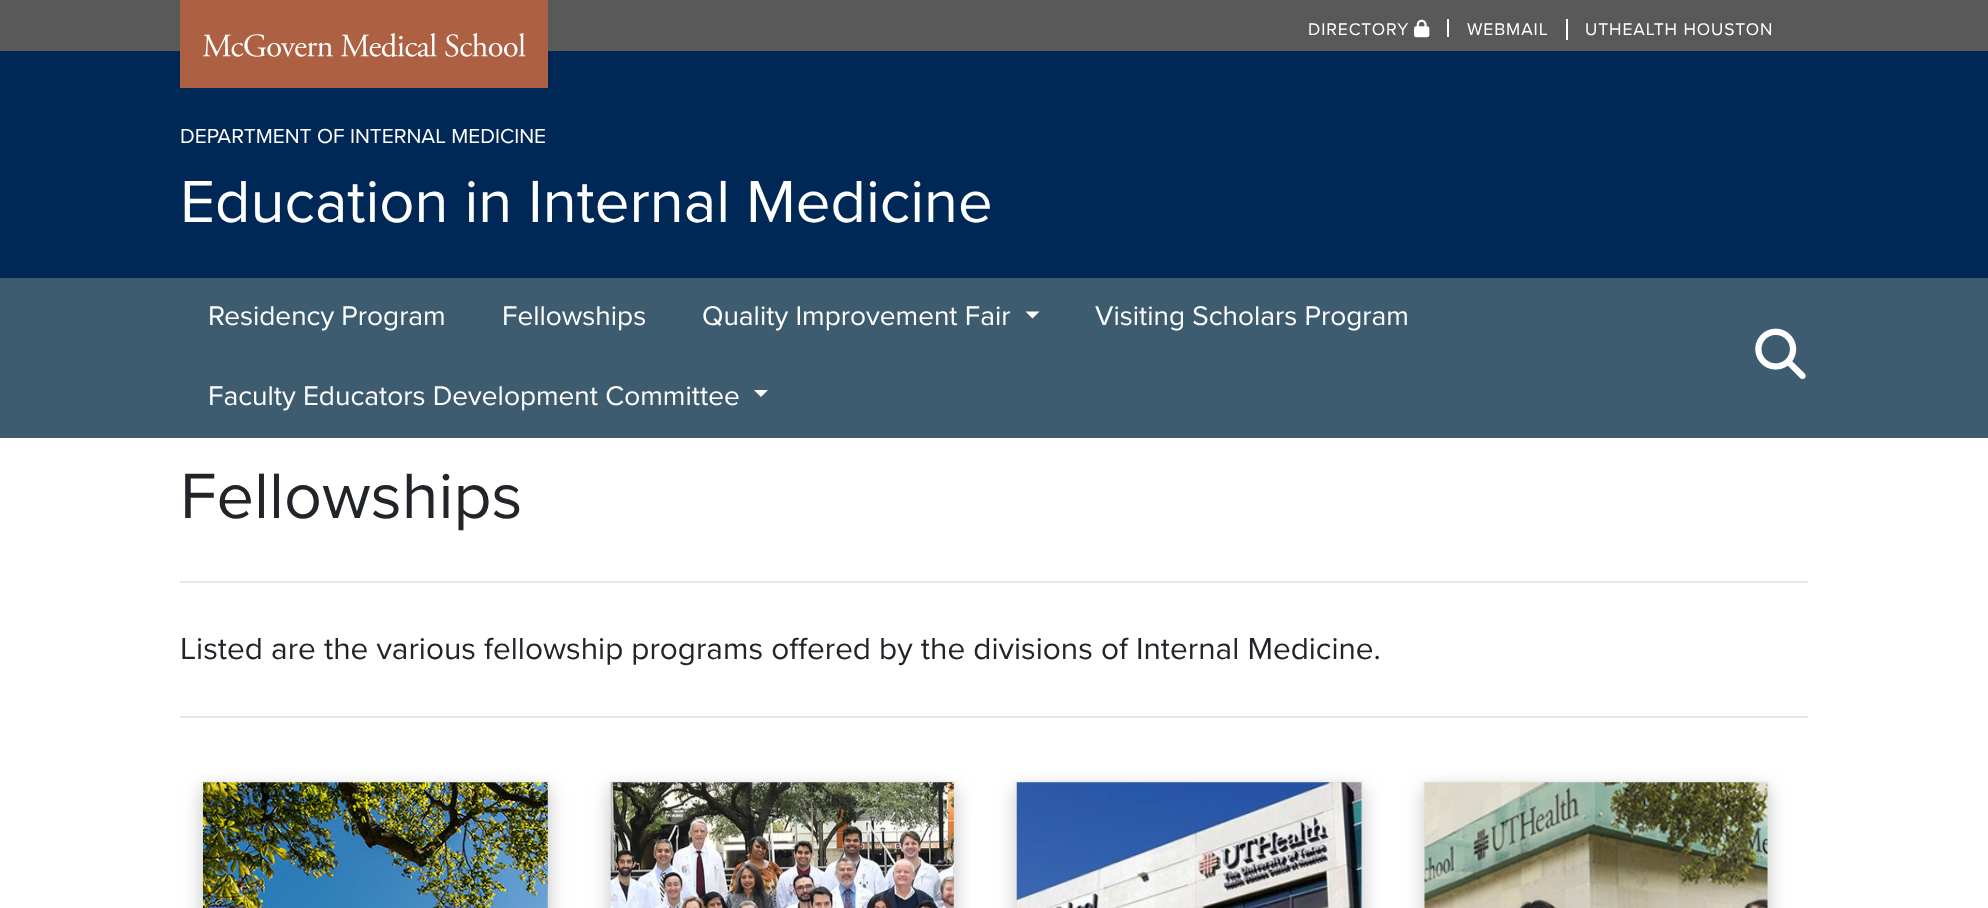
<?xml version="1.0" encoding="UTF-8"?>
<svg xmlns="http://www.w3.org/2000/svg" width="1988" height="908">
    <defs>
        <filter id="blur1" x="-50%" y="-200%" width="200%" height="500%"><feGaussianBlur stdDeviation="10.5"/></filter>
        <filter id="blur2" x="-50%" y="-200%" width="200%" height="500%"><feGaussianBlur stdDeviation="9"/></filter>
    </defs>
    <rect width="100%" height="100%" fill="#FFFFFF"/>
    <rect x="0" y="0" width="1988" height="51" fill="#595959"/>
    <rect x="0" y="51" width="1988" height="227" fill="#002856"/>
    <rect x="180" y="0" width="368" height="88" fill="#AE6042"/>
    <image x="203" y="33" width="323" height="24" href="img_01.png"/>
    <rect x="1447" y="19" width="2" height="18" fill="#FFFFFF"/>
    <text x="1308" y="35" font-family="Proxima Nova" font-size="17.5" letter-spacing="0.9" fill="#FFFFFF">DIRECTORY</text>
    <image x="1414" y="19" width="16" height="19" href="img_02.png"/>
    <text x="1467" y="35" font-family="Proxima Nova" font-size="17.5" letter-spacing="0.9" fill="#FFFFFF">WEBMAIL</text>
    <rect x="1566" y="19" width="2" height="21" fill="#FFFFFF"/>
    <text x="1585" y="35" font-family="Proxima Nova" font-size="17.5" letter-spacing="0.9" fill="#FFFFFF">UTHEALTH HOUSTON</text>
    <text x="180" y="143" font-family="Proxima Nova" font-size="21" fill="#FFFFFF">DEPARTMENT OF INTERNAL MEDICINE</text>
    <text x="180" y="222" font-family="Proxima Nova" font-size="61.6" fill="#FFFFFF">Education in Internal Medicine</text>
    <rect x="0" y="278" width="1988" height="160" fill="#3E5C6F"/>
    <text x="208" y="325" font-family="Proxima Nova" font-size="28" fill="#FFFFFF">Residency Program</text>
    <text x="502" y="325" font-family="Proxima Nova" font-size="28" fill="#FFFFFF">Fellowships</text>
    <text x="702" y="325" font-family="Proxima Nova" font-size="28" fill="#FFFFFF">Quality Improvement Fair</text>
    <path d="M 1025.5 311.5 H 1039.5 L 1032.5 318.5 Z" fill="#FFFFFF"/>
    <text x="1095" y="325" font-family="Proxima Nova" font-size="28" fill="#FFFFFF">Visiting Scholars Program</text>
    <text x="208" y="405" font-family="Proxima Nova" font-size="28" fill="#FFFFFF">Faculty Educators Development Committee</text>
    <path d="M 754 390 H 768 L 761 397 Z" fill="#FFFFFF"/>
    <image x="1755" y="328" width="51" height="51" href="img_03.png"/>
    <text x="180" y="518" font-family="Proxima Nova" font-size="66.5" fill="#212529">Fellowships</text>
    <rect x="180" y="581" width="1628" height="2" fill="#E6E6E6"/>
    <text x="180" y="659" font-family="Proxima Nova" font-size="31.5" fill="#212529">Listed are the various fellowship programs offered by the divisions of Internal Medicine.</text>
    <rect x="180" y="716" width="1628" height="2" fill="#E6E6E6"/>
    <rect x="201" y="788" width="349" height="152" fill="#EEEEEE" filter="url(#blur1)"/>
    <rect x="202" y="782" width="347" height="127" fill="none" stroke="#F4F6F7" stroke-width="2"/>
    <rect x="203" y="789" width="345" height="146" fill="#CCCCCC" filter="url(#blur2)"/>
    <image x="203" y="782" width="345" height="126" href="img_04.png"/>
    <rect x="609" y="788" width="347" height="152" fill="#EEEEEE" filter="url(#blur1)"/>
    <rect x="610" y="782" width="345" height="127" fill="none" stroke="#F4F6F7" stroke-width="2"/>
    <rect x="611" y="789" width="343" height="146" fill="#CCCCCC" filter="url(#blur2)"/>
    <image x="610" y="782" width="344" height="126" href="img_05.png"/>
    <rect x="1015" y="788" width="348" height="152" fill="#EEEEEE" filter="url(#blur1)"/>
    <rect x="1016" y="782" width="346" height="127" fill="none" stroke="#F4F6F7" stroke-width="2"/>
    <rect x="1017" y="789" width="345" height="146" fill="#CCCCCC" filter="url(#blur2)"/>
    <image x="1016" y="782" width="346" height="126" href="img_06.png"/>
    <rect x="1423" y="788" width="346" height="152" fill="#EEEEEE" filter="url(#blur1)"/>
    <rect x="1424" y="782" width="344" height="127" fill="none" stroke="#F4F6F7" stroke-width="2"/>
    <rect x="1425" y="789" width="343" height="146" fill="#CCCCCC" filter="url(#blur2)"/>
    <image x="1424" y="782" width="344" height="126" href="img_07.png"/>
</svg>
